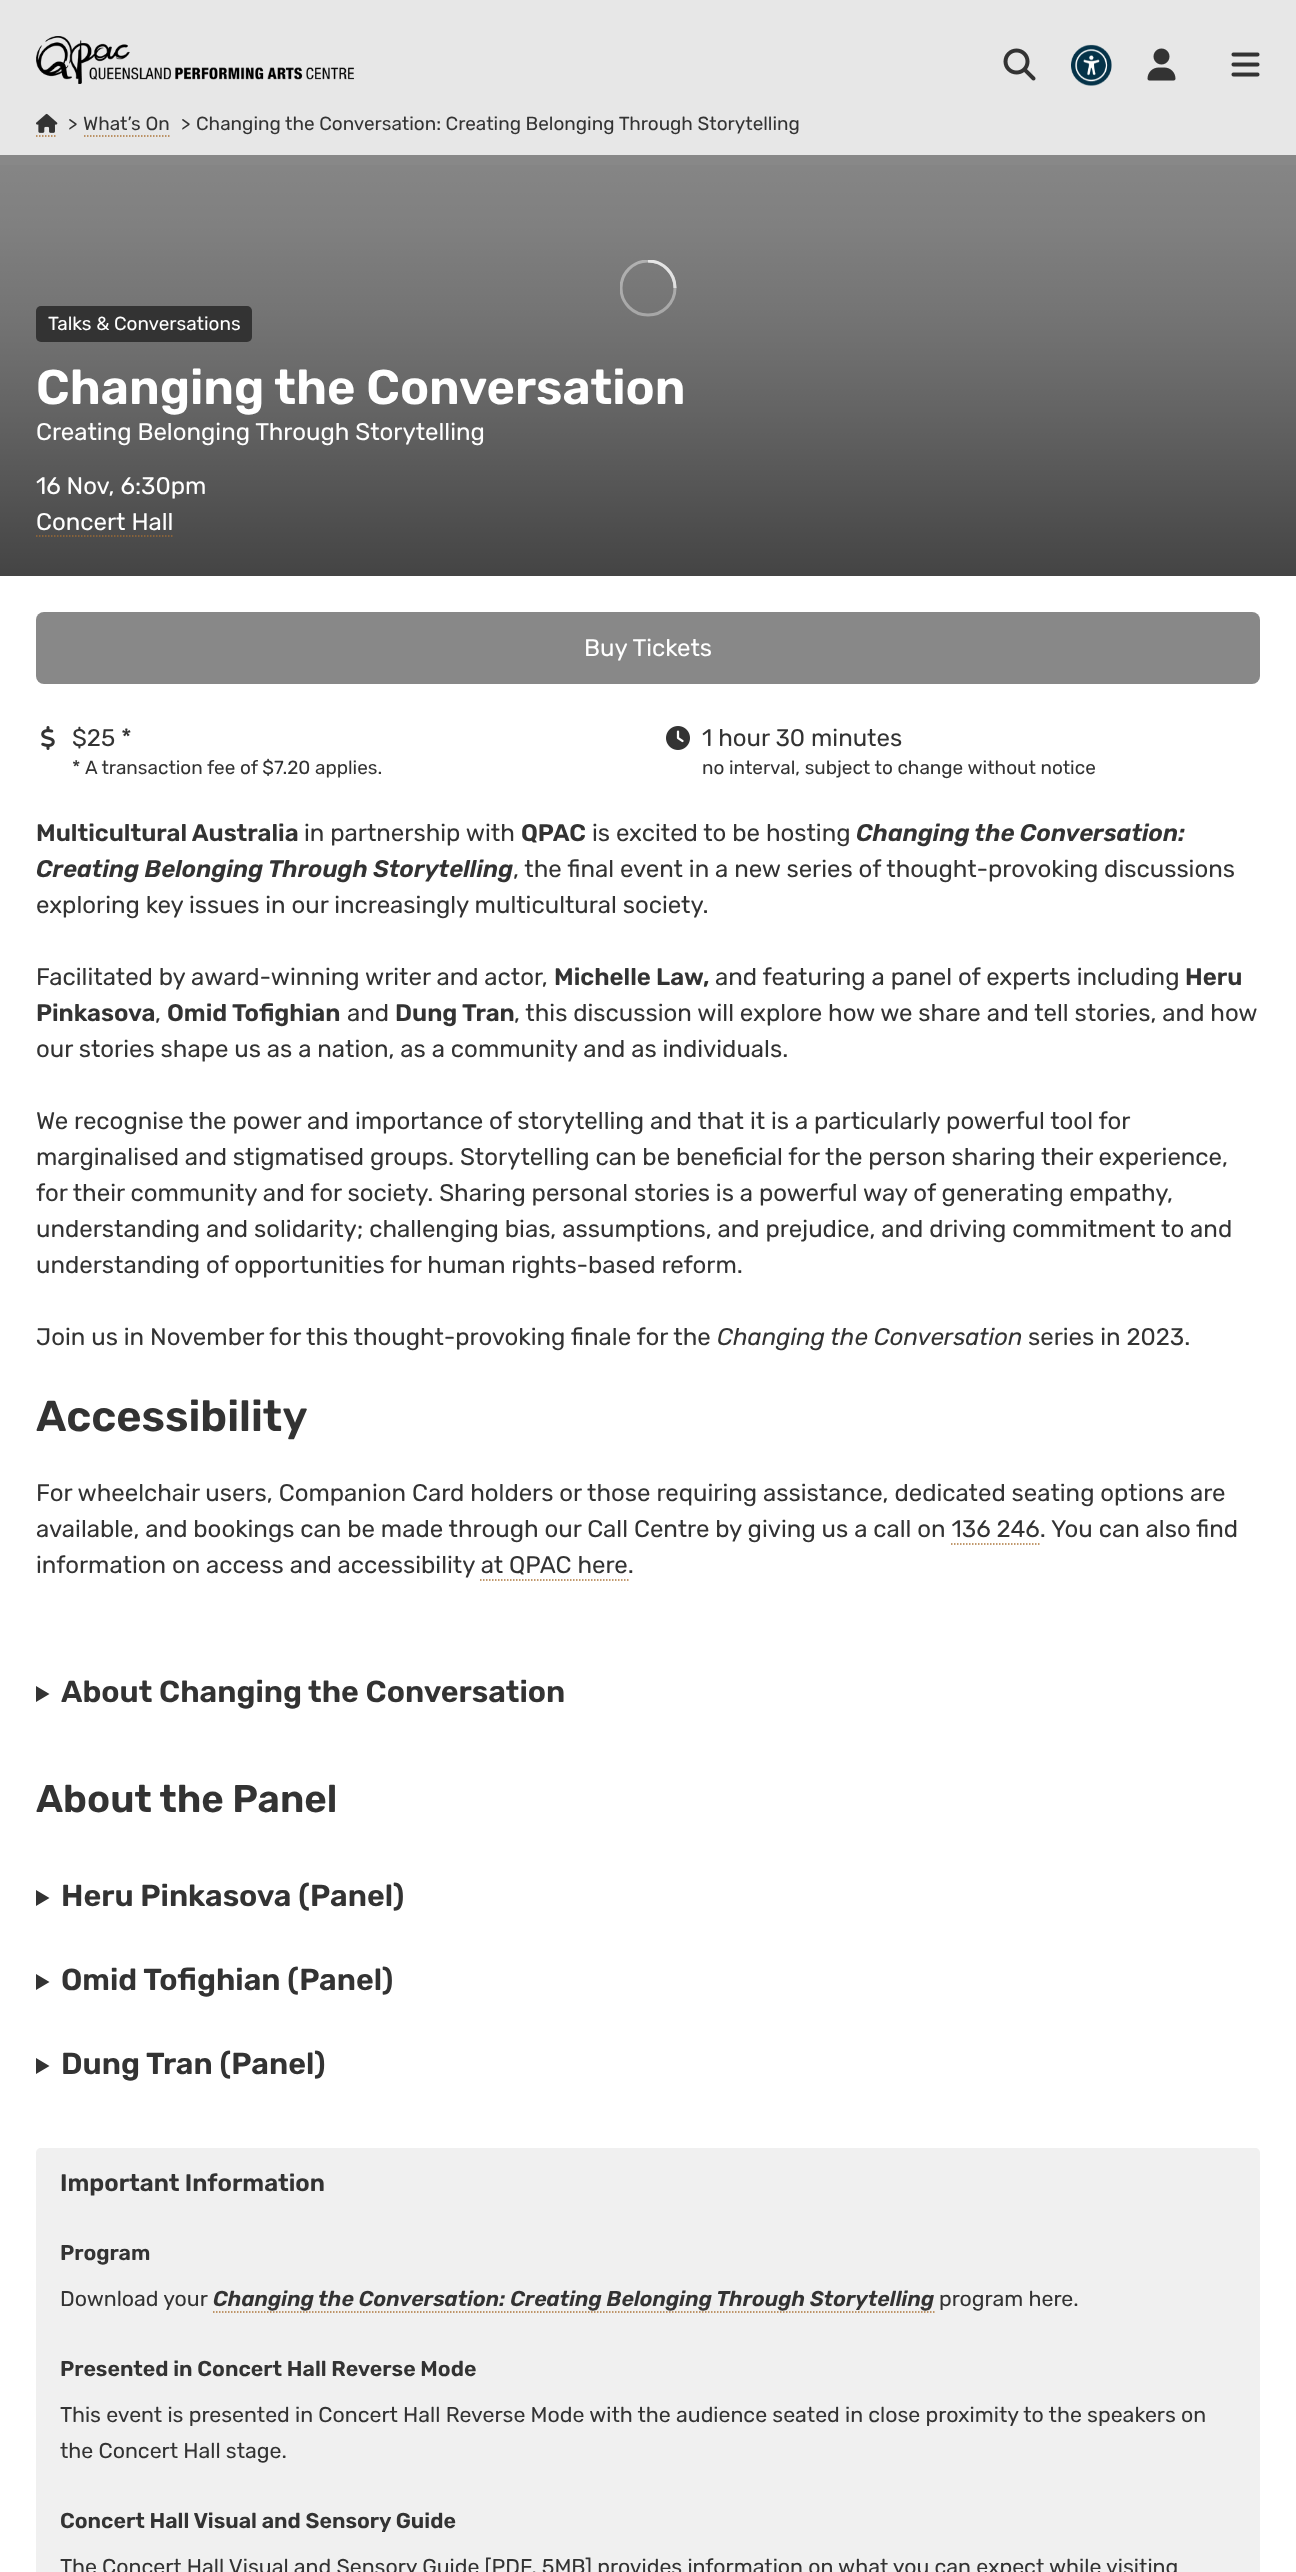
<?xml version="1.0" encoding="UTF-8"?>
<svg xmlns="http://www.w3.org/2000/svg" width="1296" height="2572">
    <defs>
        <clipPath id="clip1"><rect x="620" y="260" width="57" height="57"/></clipPath>
        <linearGradient id="g1" gradientUnits="userSpaceOnUse" x1="648" y1="576" x2="648" y2="96"><stop offset="0" stop-color="#000000" stop-opacity="0.5"/><stop offset="0.19" stop-color="#000000" stop-opacity="0.37"/><stop offset="0.34" stop-color="#000000" stop-opacity="0.27"/><stop offset="0.47" stop-color="#000000" stop-opacity="0.19"/><stop offset="0.56" stop-color="#000000" stop-opacity="0.14"/><stop offset="0.65" stop-color="#000000" stop-opacity="0.1"/><stop offset="0.73" stop-color="#000000" stop-opacity="0.06"/><stop offset="0.8" stop-color="#000000" stop-opacity="0.04"/><stop offset="0.86" stop-color="#000000" stop-opacity="0.02"/><stop offset="0.91" stop-color="#000000" stop-opacity="0.01"/><stop offset="0.95" stop-color="#000000" stop-opacity="0"/><stop offset="0.98" stop-color="#000000" stop-opacity="0"/><stop offset="1" stop-color="#000000" stop-opacity="0"/></linearGradient>
    </defs>
    <rect width="100%" height="100%" fill="#FFFFFF"/>
    <rect x="0" y="0" width="1296" height="155" fill="#E7E7E7"/>
    <image x="36" y="36" width="318" height="48" href="img_01.png"/>
    <image x="1003" y="48" width="33" height="33" href="img_02.png"/>
    <image x="1071" y="44" width="41" height="42" href="img_03.png"/>
    <image x="1147" y="48" width="29" height="33" href="img_04.png"/>
    <image x="1231" y="52" width="29" height="25" href="img_05.png"/>
    <path d="M 36 136 H 57" fill="none" stroke="#AD773D" stroke-width="1.5" stroke-dasharray="1.5 1.5"/>
    <image x="36" y="113" width="22" height="20" href="img_06.png"/>
    <text x="68" y="130" font-family="Rubik" font-size="18.95" fill="#333333">&gt;</text>
    <text x="83" y="130" font-family="Rubik" font-size="18.95" fill="#333333">What’s On</text>
    <path d="M 84 136 H 169.5" fill="none" stroke="#AD773D" stroke-width="1.5" stroke-dasharray="1.5 1.5"/>
    <text x="181" y="130" font-family="Rubik" font-size="18.95" fill="#333333">&gt;</text>
    <text x="196" y="130" font-family="Rubik" font-size="18.95" fill="#333333">Changing the Conversation: Creating Belonging Through Storytelling</text>
    <rect x="0" y="155" width="1296" height="421" fill="#888888"/>
    <g clip-path="url(#clip1)">
        <circle cx="648" cy="288" r="27" fill="none" stroke="#C4C4C4" stroke-width="3"/>
        <path d="M 675 288 C 675 273 663 261 648 261" fill="none" stroke="#FFFFFF" stroke-width="3"/>
    </g>
    <rect x="0" y="165" width="1296" height="411" fill="url(#g1)"/>
    <rect x="36" y="306" width="216" height="36" rx="5" fill="#333333"/>
    <text x="48" y="330" font-family="Rubik" font-size="18.95" fill="#FFFFFF">Talks &amp; Conversations</text>
    <text x="36" y="404" font-family="Rubik" font-size="48.6" font-weight="600" fill="#FFFFFF">Changing the Conversation</text>
    <text x="36" y="440" font-family="Rubik" font-size="24" fill="#FFFFFF">Creating Belonging Through Storytelling</text>
    <text font-family="Rubik" font-size="24" fill="#FFFFFF">
        <tspan x="36" y="494">16 Nov, 6:30pm</tspan>
        <tspan x="36" y="530">Concert Hall</tspan>
    </text>
    <path d="M 36 536 H 174" fill="none" stroke="#996936" stroke-width="1.5" stroke-dasharray="1.5 1.5"/>
    <rect x="36" y="612" width="1224" height="72" rx="8" fill="#888888"/>
    <text x="584" y="656" font-family="Rubik" font-size="24" fill="#FFFFFF">Buy Tickets</text>
    <image x="41" y="726" width="14" height="24" href="img_07.png"/>
    <text x="72" y="746" font-family="Rubik" font-size="24" fill="#333333">$25 *</text>
    <text x="72" y="774" font-family="Rubik" font-size="18.95" fill="#333333">*</text>
    <text x="85" y="774" font-family="Rubik" font-size="18.95" fill="#333333">A transaction fee of $7.20 applies.</text>
    <image x="666" y="726" width="24" height="24" href="img_08.png"/>
    <text x="702" y="746" font-family="Rubik" font-size="24" fill="#333333">1 hour 30 minutes</text>
    <text x="702" y="774" font-family="Rubik" font-size="18.95" fill="#333333">no interval, subject to change without notice</text>
    <text x="36" y="841" font-family="Rubik" font-size="24" font-weight="600" fill="#333333">Multicultural Australia</text>
    <text x="304" y="841" font-family="Rubik" font-size="24" fill="#333333">in partnership with</text>
    <text x="521" y="841" font-family="Rubik" font-size="24" font-weight="600" fill="#333333">QPAC</text>
    <text x="592" y="841" font-family="Rubik" font-size="24" fill="#333333">is excited to be hosting</text>
    <text x="856" y="841" font-family="Rubik" font-size="24" font-weight="600" font-style="italic" fill="#333333">Changing the Conversation:</text>
    <text x="36" y="877" font-family="Rubik" font-size="24" font-weight="600" font-style="italic" fill="#333333">Creating Belonging Through Storytelling</text>
    <text x="513" y="877" font-family="Rubik" font-size="24" fill="#333333">, the final event in a new series of thought-provoking discussions</text>
    <text x="36" y="913" font-family="Rubik" font-size="24" fill="#333333">exploring key issues in our increasingly multicultural society.</text>
    <text x="36" y="985" font-family="Rubik" font-size="24" fill="#333333">Facilitated by award-winning writer and actor,</text>
    <text x="554" y="985" font-family="Rubik" font-size="24" font-weight="600" fill="#333333">Michelle Law,</text>
    <text x="715" y="985" font-family="Rubik" font-size="24" fill="#333333">and featuring a panel of experts including</text>
    <text x="1185" y="985" font-family="Rubik" font-size="24" font-weight="600" fill="#333333">Heru</text>
    <text x="36" y="1021" font-family="Rubik" font-size="24" font-weight="600" fill="#333333">Pinkasova</text>
    <text x="155" y="1021" font-family="Rubik" font-size="24" fill="#333333">,</text>
    <text x="167" y="1021" font-family="Rubik" font-size="24" font-weight="600" fill="#333333">Omid Tofighian</text>
    <text x="347" y="1021" font-family="Rubik" font-size="24" fill="#333333">and</text>
    <text x="395" y="1021" font-family="Rubik" font-size="24" font-weight="600" fill="#333333">Dung Tran</text>
    <text x="514" y="1021" font-family="Rubik" font-size="24" fill="#333333">, this discussion will explore how we share and tell stories, and how</text>
    <text x="36" y="1057" font-family="Rubik" font-size="24" fill="#333333">our stories shape us as a nation, as a community and as individuals.</text>
    <text font-family="Rubik" font-size="24" fill="#333333">
        <tspan x="36" y="1129">We recognise the power and importance of storytelling and that it is a particularly powerful tool for</tspan>
        <tspan x="36" y="1165">marginalised and stigmatised groups. Storytelling can be beneficial for the person sharing their experience,</tspan>
        <tspan x="36" y="1201">for their community and for society. Sharing personal stories is a powerful way of generating empathy,</tspan>
        <tspan x="36" y="1237">understanding and solidarity; challenging bias, assumptions, and prejudice, and driving commitment to and</tspan>
        <tspan x="36" y="1273">understanding of opportunities for human rights-based reform.</tspan>
    </text>
    <text x="36" y="1345" font-family="Rubik" font-size="24" fill="#333333">Join us in November for this thought-provoking finale for the</text>
    <text x="717" y="1345" font-family="Rubik" font-size="24" font-style="italic" fill="#333333">Changing the Conversation</text>
    <text x="1028" y="1345" font-family="Rubik" font-size="24" fill="#333333">series in 2023.</text>
    <text x="36" y="1431" font-family="Rubik" font-size="43.25" font-weight="600" fill="#333333">Accessibility</text>
    <text font-family="Rubik" font-size="24" fill="#333333">
        <tspan x="36" y="1501">For wheelchair users, Companion Card holders or those requiring assistance, dedicated seating options are</tspan>
        <tspan x="36" y="1537">available, and bookings can be made through our Call Centre by giving us a call on 136 246. You can also find</tspan>
    </text>
    <path d="M 951 1544 H 1039.5" fill="none" stroke="#AD773D" stroke-width="1.5" stroke-dasharray="1.5 1.5"/>
    <text x="36" y="1573" font-family="Rubik" font-size="24" fill="#333333">information on access and accessibility at QPAC here.</text>
    <path d="M 480 1580 H 628.5" fill="none" stroke="#AD773D" stroke-width="1.5" stroke-dasharray="1.5 1.5"/>
    <path d="M 36 1686 L 49.5 1694 L 36 1702 Z" fill="#333333"/>
    <text x="61" y="1702" font-family="Rubik" font-size="30.4" font-weight="600" fill="#333333">About Changing the Conversation</text>
    <text x="36" y="1812" font-family="Rubik" font-size="38.5" font-weight="600" fill="#333333">About the Panel</text>
    <path d="M 36 1890 L 49.5 1898 L 36 1906 Z" fill="#333333"/>
    <text x="61" y="1906" font-family="Rubik" font-size="30.4" font-weight="600" fill="#333333">Heru Pinkasova (Panel)</text>
    <path d="M 36 1974 L 49.5 1982 L 36 1990 Z" fill="#333333"/>
    <text x="61" y="1990" font-family="Rubik" font-size="30.4" font-weight="600" fill="#333333">Omid Tofighian (Panel)</text>
    <path d="M 36 2058 L 49.5 2066 L 36 2074 Z" fill="#333333"/>
    <text x="61" y="2074" font-family="Rubik" font-size="30.4" font-weight="600" fill="#333333">Dung Tran (Panel)</text>
    <path d="M 41 2148 H 1255 C 1258 2148 1260 2150 1260 2153 V 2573 H 36 V 2153 C 36 2150 38 2148 41 2148 Z" fill="#F0F0F0"/>
    <text x="60" y="2191" font-family="Rubik" font-size="24" font-weight="600" fill="#333333">Important Information</text>
    <text x="60" y="2260" font-family="Rubik" font-size="21.33" font-weight="600" fill="#333333">Program</text>
    <text x="60" y="2306" font-family="Rubik" font-size="21.33" fill="#333333">Download your</text>
    <text x="213" y="2306" font-family="Rubik" font-size="21.33" font-weight="600" font-style="italic" fill="#333333">Changing the Conversation: Creating Belonging Through Storytelling</text>
    <path d="M 213 2312 H 934.5" fill="none" stroke="#AD773D" stroke-width="1.5" stroke-dasharray="1.5 1.5"/>
    <text x="939" y="2306" font-family="Rubik" font-size="21.33" fill="#333333">program here.</text>
    <text x="60" y="2376" font-family="Rubik" font-size="21.33" font-weight="600" fill="#333333">Presented in Concert Hall Reverse Mode</text>
    <text font-family="Rubik" font-size="21.33" fill="#333333">
        <tspan x="60" y="2422">This event is presented in Concert Hall Reverse Mode with the audience seated in close proximity to the speakers on</tspan>
        <tspan x="60" y="2458">the Concert Hall stage.</tspan>
    </text>
    <text x="60" y="2528" font-family="Rubik" font-size="21.33" font-weight="600" fill="#333333">Concert Hall Visual and Sensory Guide</text>
    <text x="60" y="2574" font-family="Rubik" font-size="21.33" fill="#333333">The Concert Hall Visual and Sensory Guide [PDF, 5MB] provides information on what you can expect while visiting</text>
</svg>
